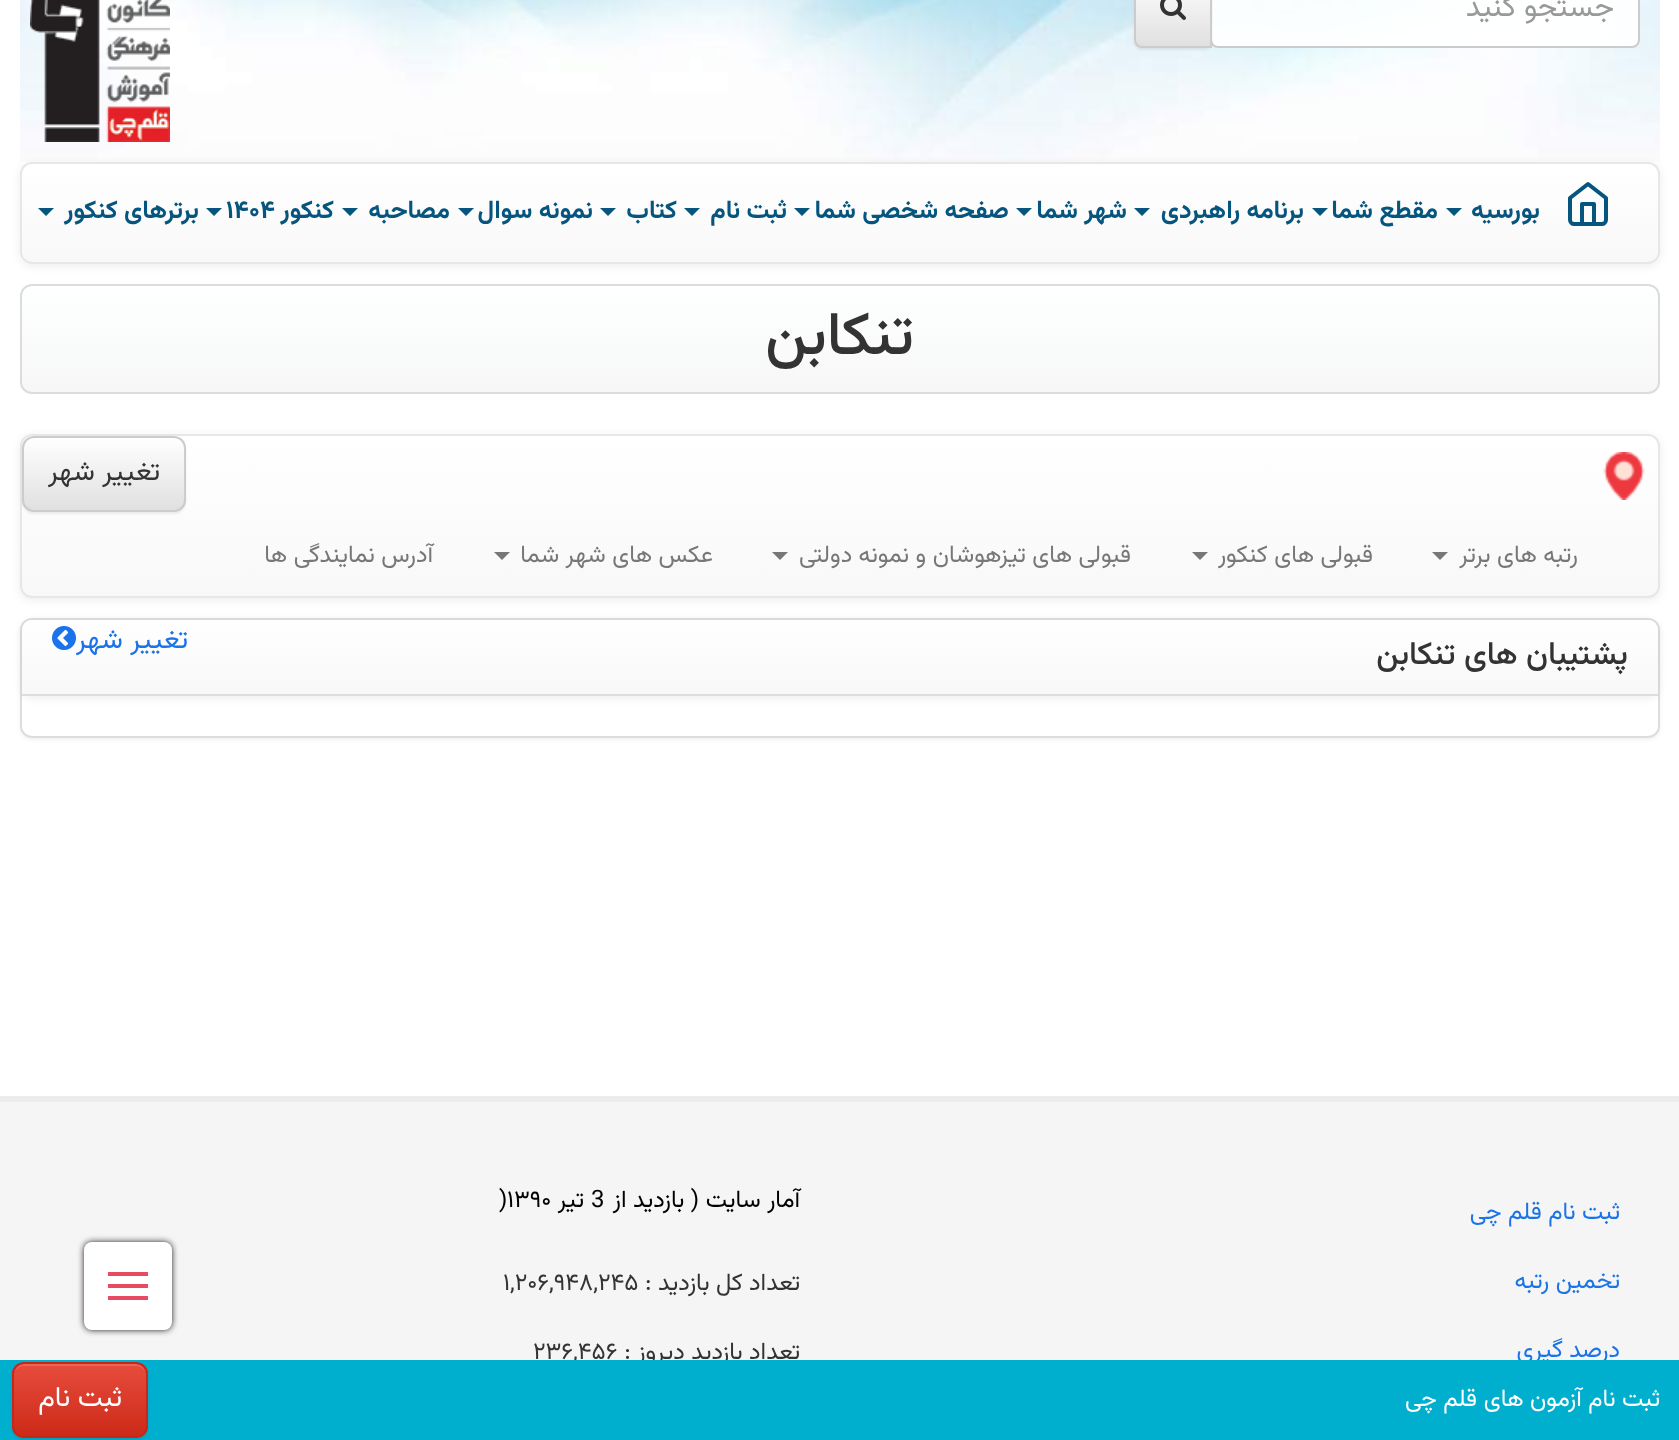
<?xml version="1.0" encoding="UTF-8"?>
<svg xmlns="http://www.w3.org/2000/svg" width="1679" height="1440">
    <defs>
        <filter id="blur1" x="-50%" y="-200%" width="200%" height="500%"><feGaussianBlur stdDeviation="1"/></filter>
        <clipPath id="clip1"><path d="M 1142 -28 H 1212 V 48 H 1142 C 1137.5 48 1134 44.5 1134 40 V -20 C 1134 -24.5 1137.5 -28 1142 -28 Z"/></clipPath>
        <linearGradient id="g1" gradientUnits="userSpaceOnUse" x1="1173" y1="-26" x2="1173" y2="46"><stop offset="0" stop-color="#FFFFFF"/><stop offset="1" stop-color="#E0E0E0"/></linearGradient>
        <filter id="blur2" x="-50%" y="-200%" width="200%" height="500%"><feGaussianBlur stdDeviation="5"/></filter>
        <clipPath id="clip2"><rect x="20" y="162" width="1640" height="102" rx="12"/></clipPath>
        <linearGradient id="g2" gradientUnits="userSpaceOnUse" x1="840" y1="164" x2="840" y2="262"><stop offset="0" stop-color="#FFFFFF"/><stop offset="1" stop-color="#F8F8F8"/></linearGradient>
        <clipPath id="clip3"><rect x="20" y="284" width="1640" height="110" rx="12"/></clipPath>
        <linearGradient id="g3" gradientUnits="userSpaceOnUse" x1="840" y1="286" x2="840" y2="392"><stop offset="0" stop-color="#FEFFFF"/><stop offset="1" stop-color="#F7F7F7"/></linearGradient>
        <clipPath id="clip4"><rect x="20" y="434" width="1640" height="164" rx="12"/></clipPath>
        <linearGradient id="g4" gradientUnits="userSpaceOnUse" x1="840" y1="436" x2="840" y2="596"><stop offset="0" stop-color="#FFFFFF"/><stop offset="1" stop-color="#F8F8F8"/></linearGradient>
        <clipPath id="clip5"><rect x="22" y="436" width="164" height="76" rx="12"/></clipPath>
        <linearGradient id="g5" gradientUnits="userSpaceOnUse" x1="104" y1="438" x2="104" y2="510"><stop offset="0" stop-color="#FFFFFF"/><stop offset="1" stop-color="#E0E0E0"/></linearGradient>
        <filter id="blur3" x="-50%" y="-200%" width="200%" height="500%"><feGaussianBlur stdDeviation="2"/></filter>
        <linearGradient id="g6" gradientUnits="userSpaceOnUse" x1="840" y1="620" x2="840" y2="694"><stop offset="0" stop-color="#FFFFFF"/><stop offset="1" stop-color="#F8F8F8"/></linearGradient>
        <filter id="blur4" x="-50%" y="-200%" width="200%" height="500%"><feGaussianBlur stdDeviation="3"/></filter>
        <clipPath id="clip6"><rect x="12" y="1362" width="136" height="76" rx="12"/></clipPath>
        <linearGradient id="g7" gradientUnits="userSpaceOnUse" x1="80" y1="1364" x2="80" y2="1436"><stop offset="0" stop-color="#E74C3C"/><stop offset="1" stop-color="#CD2A19"/></linearGradient>
    </defs>
    <rect width="100%" height="100%" fill="#FFFFFF"/>
    <image x="20" y="0" width="1640" height="162" href="img_01.png"/>
    <rect x="1211" y="-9" width="428" height="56" rx="7" fill="#FFFFFF" fill-opacity="0.9" stroke="#CCCCCC" stroke-width="2"/>
    <text x="1614" y="16" font-family="Vazirmatn" font-size="30" direction="rtl" fill="#999999">جستجو کنید</text>
    <rect x="1134" y="-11" width="78" height="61" rx="8" fill="#000000" fill-opacity="0.07" filter="url(#blur1)"/>
    <g clip-path="url(#clip1)">
        <rect x="1134" y="0" width="76" height="46" fill="url(#g1)"/>
    </g>
    <path d="M 1142 -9 H 1211 V 47 H 1142 C 1138 47 1135 44 1135 40 V -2 C 1135 -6 1138 -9 1142 -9 Z" fill="none" stroke="#CCCCCC" stroke-width="2"/>
    <image x="1160" y="0" width="26" height="20" href="img_02.png"/>
    <image x="30" y="0" width="140" height="142" href="img_03.png"/>
    <rect x="20" y="164" width="1640" height="102" rx="12" fill="#000000" fill-opacity="0.07" filter="url(#blur2)"/>
    <g clip-path="url(#clip2)">
        <rect x="20" y="164" width="1640" height="98" fill="url(#g2)"/>
    </g>
    <rect x="21" y="163" width="1638" height="100" rx="11" fill="none" stroke="#E7E7E7" stroke-width="2"/>
    <path d="M 1570 198 L 1588 184 L 1606 198 V 220 C 1606 222 1604 224 1602 224 H 1574 C 1572 224 1570 222 1570 220 Z M 1582 224 V 204 H 1594 V 224" fill="none" stroke="#05557E" stroke-width="4" stroke-linecap="round" stroke-linejoin="round"/>
    <text x="1540" y="218" font-family="Vazirmatn" font-size="25.25" font-weight="700" direction="rtl" fill="#05557E">بورسیه</text>
    <path d="M 1446 208 H 1462 L 1454 216 Z" fill="#05557E"/>
    <text x="1438" y="218" font-family="Vazirmatn" font-size="25.25" font-weight="700" direction="rtl" fill="#05557E">مقطع شما</text>
    <path d="M 1312 208 H 1328 L 1320 216 Z" fill="#05557E"/>
    <text x="1304" y="218" font-family="Vazirmatn" font-size="25.25" font-weight="700" direction="rtl" fill="#05557E">برنامه راهبردی</text>
    <path d="M 1134 208 H 1150 L 1142 216 Z" fill="#05557E"/>
    <text x="1127" y="218" font-family="Vazirmatn" font-size="25.25" font-weight="700" direction="rtl" fill="#05557E">شهر شما</text>
    <path d="M 1016 208 H 1032 L 1024 216 Z" fill="#05557E"/>
    <text x="1009" y="218" font-family="Vazirmatn" font-size="25.25" font-weight="700" direction="rtl" fill="#05557E">صفحه شخصی شما</text>
    <path d="M 794 208 H 810 L 802 216 Z" fill="#05557E"/>
    <text x="787" y="218" font-family="Vazirmatn" font-size="25.25" font-weight="700" direction="rtl" fill="#05557E">ثبت نام</text>
    <path d="M 684 208 H 700 L 692 216 Z" fill="#05557E"/>
    <text x="677" y="218" font-family="Vazirmatn" font-size="25.25" font-weight="700" direction="rtl" fill="#05557E">کتاب</text>
    <path d="M 600 208 H 616 L 608 216 Z" fill="#05557E"/>
    <text x="593" y="218" font-family="Vazirmatn" font-size="25.25" font-weight="700" direction="rtl" fill="#05557E">نمونه سوال</text>
    <path d="M 458 208 H 474 L 466 216 Z" fill="#05557E"/>
    <text x="450" y="218" font-family="Vazirmatn" font-size="25.25" font-weight="700" direction="rtl" fill="#05557E">مصاحبه</text>
    <path d="M 342 208 H 358 L 350 216 Z" fill="#05557E"/>
    <text x="334" y="218" font-family="Vazirmatn" font-size="25.25" font-weight="700" direction="rtl" fill="#05557E">کنکور</text>
    <text x="226" y="218" font-family="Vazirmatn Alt" font-size="25.25" font-weight="700" fill="#05557E">1404</text>
    <path d="M 206 208 H 222 L 214 216 Z" fill="#05557E"/>
    <text x="199" y="218" font-family="Vazirmatn" font-size="25.25" font-weight="700" direction="rtl" fill="#05557E">برترهای کنکور</text>
    <path d="M 38 208 H 54 L 46 216 Z" fill="#05557E"/>
    <g clip-path="url(#clip3)">
        <rect x="20" y="286" width="1640" height="106" fill="url(#g3)"/>
    </g>
    <rect x="21" y="285" width="1638" height="108" rx="11" fill="none" stroke="#DCDCDC" stroke-width="2"/>
    <text x="914" y="354" font-family="Vazirmatn" font-size="60" font-weight="500" direction="rtl" fill="#333333">تنكابن</text>
    <rect x="20" y="436" width="1640" height="164" rx="12" fill="#000000" fill-opacity="0.07" filter="url(#blur2)"/>
    <g clip-path="url(#clip4)">
        <rect x="20" y="436" width="1640" height="160" fill="url(#g4)"/>
    </g>
    <rect x="21" y="435" width="1638" height="162" rx="11" fill="none" stroke="#E7E7E7" stroke-width="2"/>
    <rect x="22" y="438" width="164" height="76" rx="12" fill="#000000" fill-opacity="0.07" filter="url(#blur1)"/>
    <g clip-path="url(#clip5)">
        <rect x="22" y="438" width="164" height="72" fill="url(#g5)"/>
    </g>
    <rect x="23" y="437" width="162" height="74" rx="11" fill="none" stroke="#CCCCCC" stroke-width="2"/>
    <text x="160" y="480" font-family="Vazirmatn" font-size="28" direction="rtl" fill="#333333">تغییر شهر</text>
    <image x="1603" y="452" width="42" height="48" href="img_04.png"/>
    <text x="1578" y="562" font-family="Vazirmatn" font-size="24" direction="rtl" fill="#777777">رتبه های برتر</text>
    <path d="M 1432 552 H 1448 L 1440 560 Z" fill="#777777"/>
    <text x="1373" y="562" font-family="Vazirmatn" font-size="24" direction="rtl" fill="#777777">قبولی های کنکور</text>
    <path d="M 1192 552 H 1208 L 1200 560 Z" fill="#777777"/>
    <text x="1131" y="562" font-family="Vazirmatn" font-size="24" direction="rtl" fill="#777777">قبولی های تیزهوشان و نمونه دولتی</text>
    <path d="M 772 552 H 788 L 780 560 Z" fill="#777777"/>
    <text x="713" y="562" font-family="Vazirmatn" font-size="24" direction="rtl" fill="#777777">عکس های شهر شما</text>
    <path d="M 494 552 H 510 L 502 560 Z" fill="#777777"/>
    <text x="433" y="562" font-family="Vazirmatn" font-size="24" direction="rtl" fill="#777777">آدرس نمایندگی ها</text>
    <rect x="20" y="620" width="1640" height="120" rx="12" fill="#000000" fill-opacity="0.05" filter="url(#blur3)"/>
    <rect x="21" y="619" width="1638" height="118" rx="11" fill="#FFFFFF" stroke="#DDDDDD" stroke-width="2"/>
    <rect x="22" y="622" width="1636" height="76" rx="10" fill="#000000" fill-opacity="0.07" filter="url(#blur2)"/>
    <path d="M 32 620 H 1648 C 1653.5 620 1658 624.5 1658 630 V 694 H 22 V 630 C 22 624.5 26.5 620 32 620 Z" fill="url(#g6)"/>
    <rect x="22" y="694" width="1636" height="2" fill="#DDDDDD"/>
    <text x="1628" y="664" font-family="Vazirmatn" font-size="32" font-weight="500" direction="rtl" fill="#333333">پشتیبان های تنكابن</text>
    <text x="188" y="648" font-family="Vazirmatn" font-size="28" direction="rtl" fill="#1A73E8">تغییر شهر</text>
    <image x="52" y="626" width="24" height="24" href="img_05.png"/>
    <rect x="0" y="1102" width="1679" height="258" fill="#F5F5F5"/>
    <rect x="0" y="1096" width="1679" height="6" fill="#ECECEC"/>
    <text x="1620" y="1219" font-family="Vazirmatn" font-size="24" direction="rtl" fill="#1A73E8">ثبت نام قلم چی</text>
    <text x="1620" y="1288" font-family="Vazirmatn" font-size="24" direction="rtl" fill="#1A73E8">تخمین رتبه</text>
    <text x="1620" y="1357" font-family="Vazirmatn" font-size="24" direction="rtl" fill="#1A73E8">درصد گیری</text>
    <text x="800" y="1207" font-family="Vazirmatn" font-size="24" direction="rtl" fill="#000000">آمار سایت</text>
    <text x="699" y="1207" font-family="Vazirmatn" font-size="24" direction="rtl" fill="#000000">( بازدید از</text>
    <text x="591" y="1207" font-family="Vazirmatn" font-size="24" fill="#000000">3</text>
    <text x="584" y="1207" font-family="Vazirmatn" font-size="24" direction="rtl" fill="#000000">تیر</text>
    <text x="507" y="1207" font-family="Vazirmatn Alt" font-size="24" fill="#000000">1390</text>
    <text x="499" y="1207" font-family="Vazirmatn" font-size="24" fill="#000000">)</text>
    <text x="800" y="1290" font-family="Vazirmatn" font-size="24" direction="rtl" fill="#333333">تعداد کل بازدید :</text>
    <text x="503" y="1290" font-family="Vazirmatn Alt" font-size="24" fill="#333333">1,206,948,245</text>
    <text x="800" y="1359" font-family="Vazirmatn" font-size="24" direction="rtl" fill="#333333">تعداد بازدید دیروز :</text>
    <text x="533" y="1359" font-family="Vazirmatn Alt" font-size="24" fill="#333333">236,456</text>
    <rect x="84" y="1242" width="88" height="88" rx="8" fill="#231F20" filter="url(#blur4)"/>
    <rect x="84" y="1242" width="88" height="88" rx="8" fill="#FFFFFF"/>
    <rect x="108" y="1284" width="40" height="4" fill="#E84A64"/>
    <rect x="108" y="1272" width="40" height="4" fill="#E84A64"/>
    <rect x="108" y="1296" width="40" height="4" fill="#E84A64"/>
    <rect x="0" y="1360" width="1679" height="80" fill="#00AECD"/>
    <text x="1660" y="1406" font-family="Vazirmatn" font-size="24" direction="rtl" fill="#FFFFFF">ثبت نام آزمون های</text>
    <text x="1477" y="1406" font-family="Vazirmatn" font-size="24" direction="rtl" fill="#FFFFFF">قلم چی</text>
    <rect x="12" y="1364" width="136" height="76" rx="12" fill="#000000" fill-opacity="0.07" filter="url(#blur1)"/>
    <g clip-path="url(#clip6)">
        <rect x="12" y="1364" width="136" height="72" fill="url(#g7)"/>
    </g>
    <path d="M 24 1366 H 136 C 142 1366 146 1370 146 1376 C 146 1360 129 1364 117 1364 H 43 C 31 1364 14 1360 14 1376 C 14 1370 18 1366 24 1366 Z" fill="#FFFFFF" fill-opacity="0.15"/>
    <rect x="13" y="1363" width="134" height="74" rx="11" fill="none" stroke="#C42818" stroke-width="2"/>
    <text x="122" y="1406" font-family="Vazirmatn" font-size="28" direction="rtl" fill="#FFFFFF">ثبت نام</text>
</svg>
